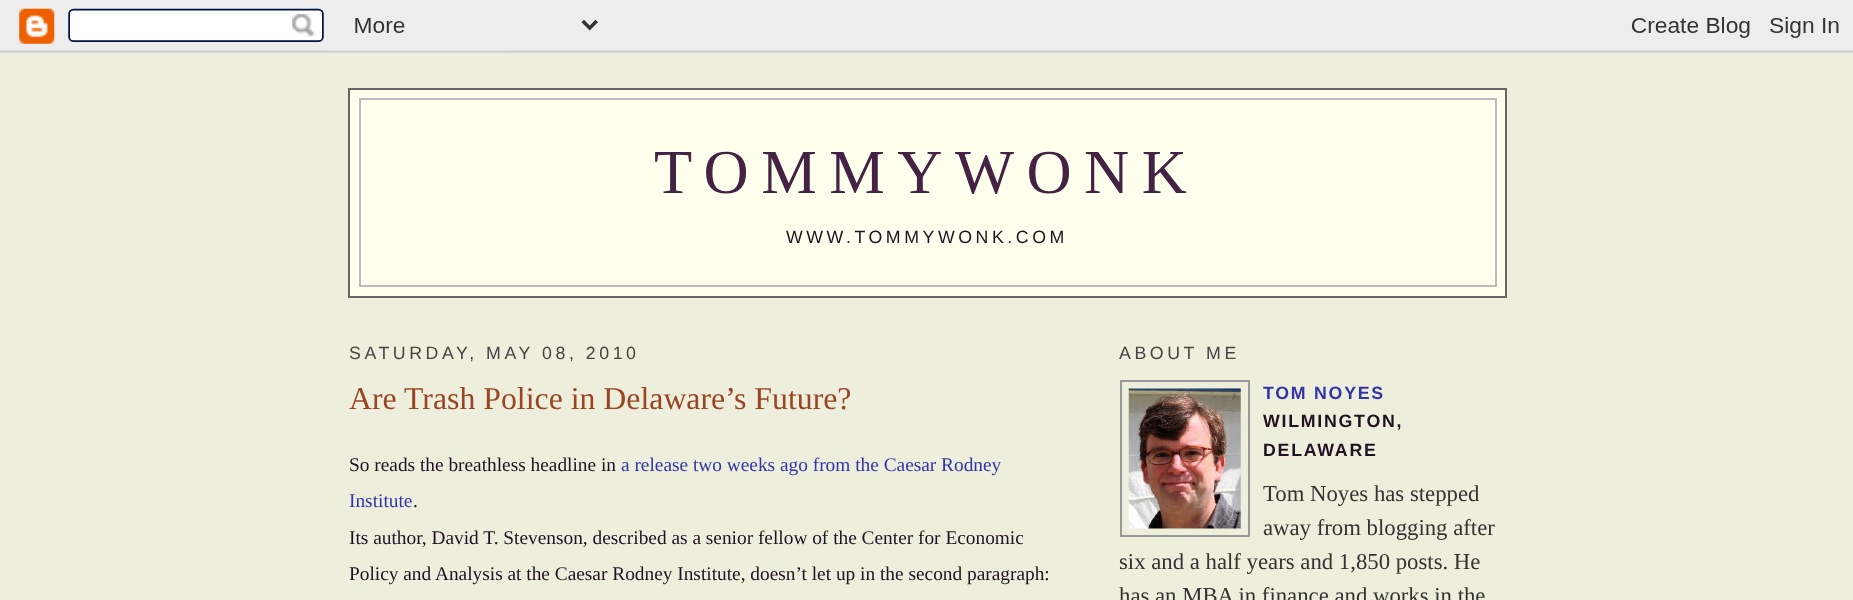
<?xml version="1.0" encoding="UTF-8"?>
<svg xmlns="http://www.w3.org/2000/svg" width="1853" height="600">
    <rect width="100%" height="100%" fill="#EEEEDD"/>
    <image x="0" y="0" width="1853" height="53" href="img_01.png"/>
    <rect x="349" y="89" width="1157" height="208" fill="#FFFFEE" stroke="#666666" stroke-width="2"/>
    <rect x="359" y="98" width="1137" height="2" fill="#BBBBBB"/>
    <rect x="1495" y="98" width="2" height="189" fill="#BBBBBB"/>
    <rect x="359" y="98" width="2" height="128" fill="#BBBBBB"/>
    <text x="654" y="193" font-family="Liberation Serif" font-size="62.5" letter-spacing="12.5" fill="#442244">TOMMYWONK</text>
    <rect x="359" y="285" width="1137" height="2" fill="#BBBBBB"/>
    <rect x="359" y="226" width="2" height="61" fill="#BBBBBB"/>
    <text x="786" y="243" font-family="Liberation Sans" font-size="17.75" letter-spacing="3.55" fill="#221122">WWW.TOMMYWONK.COM</text>
    <text x="349" y="359" font-family="Liberation Sans" font-size="17.75" letter-spacing="3.55" fill="#444444">SATURDAY, MAY 08, 2010</text>
    <text x="349" y="409" font-family="Liberation Serif" font-size="31.8" fill="#994422">Are Trash Police in Delaware’s Future?</text>
    <text x="349" y="471" font-family="Liberation Serif" font-size="19.35" fill="#221122">So reads the breathless headline in</text>
    <text x="621" y="471" font-family="Liberation Serif" font-size="19.35" fill="#3333AA">a release two weeks ago from the Caesar Rodney</text>
    <text x="349" y="507" font-family="Liberation Serif" font-size="19.35" fill="#3333AA">Institute</text>
    <text x="413" y="507" font-family="Liberation Serif" font-size="19.35" fill="#221122">.</text>
    <text font-family="Liberation Serif" font-size="19.35" fill="#221122">
        <tspan x="349" y="544">Its author, David T. Stevenson, described as a senior fellow of the Center for Economic</tspan>
        <tspan x="349" y="580">Policy and Analysis at the Caesar Rodney Institute, doesn’t let up in the second paragraph:</tspan>
    </text>
    <text x="1119" y="359" font-family="Liberation Sans" font-size="17.75" letter-spacing="3.55" fill="#444444">ABOUT ME</text>
    <rect x="1121" y="381" width="128" height="155" fill="none" stroke="#999999" stroke-width="2"/>
    <image x="1128" y="388" width="113" height="141" href="img_02.png"/>
    <text x="1263" y="399" font-family="Liberation Sans" font-size="17.75" font-weight="700" letter-spacing="1.75" fill="#3333AA">TOM NOYES</text>
    <text font-family="Liberation Sans" font-size="17.75" font-weight="700" letter-spacing="1.75" fill="#221122">
        <tspan x="1263" y="427">WILMINGTON,</tspan>
        <tspan x="1263" y="456">DELAWARE</tspan>
    </text>
    <text font-family="Liberation Serif" font-size="22.75" fill="#333333">
        <tspan x="1263" y="501">Tom Noyes has stepped</tspan>
        <tspan x="1263" y="535">away from blogging after</tspan>
    </text>
    <text font-family="Liberation Serif" font-size="22.75" fill="#333333">
        <tspan x="1119" y="569">six and a half years and 1,850 posts. He</tspan>
        <tspan x="1119" y="603">has an MBA in finance and works in the</tspan>
    </text>
</svg>
